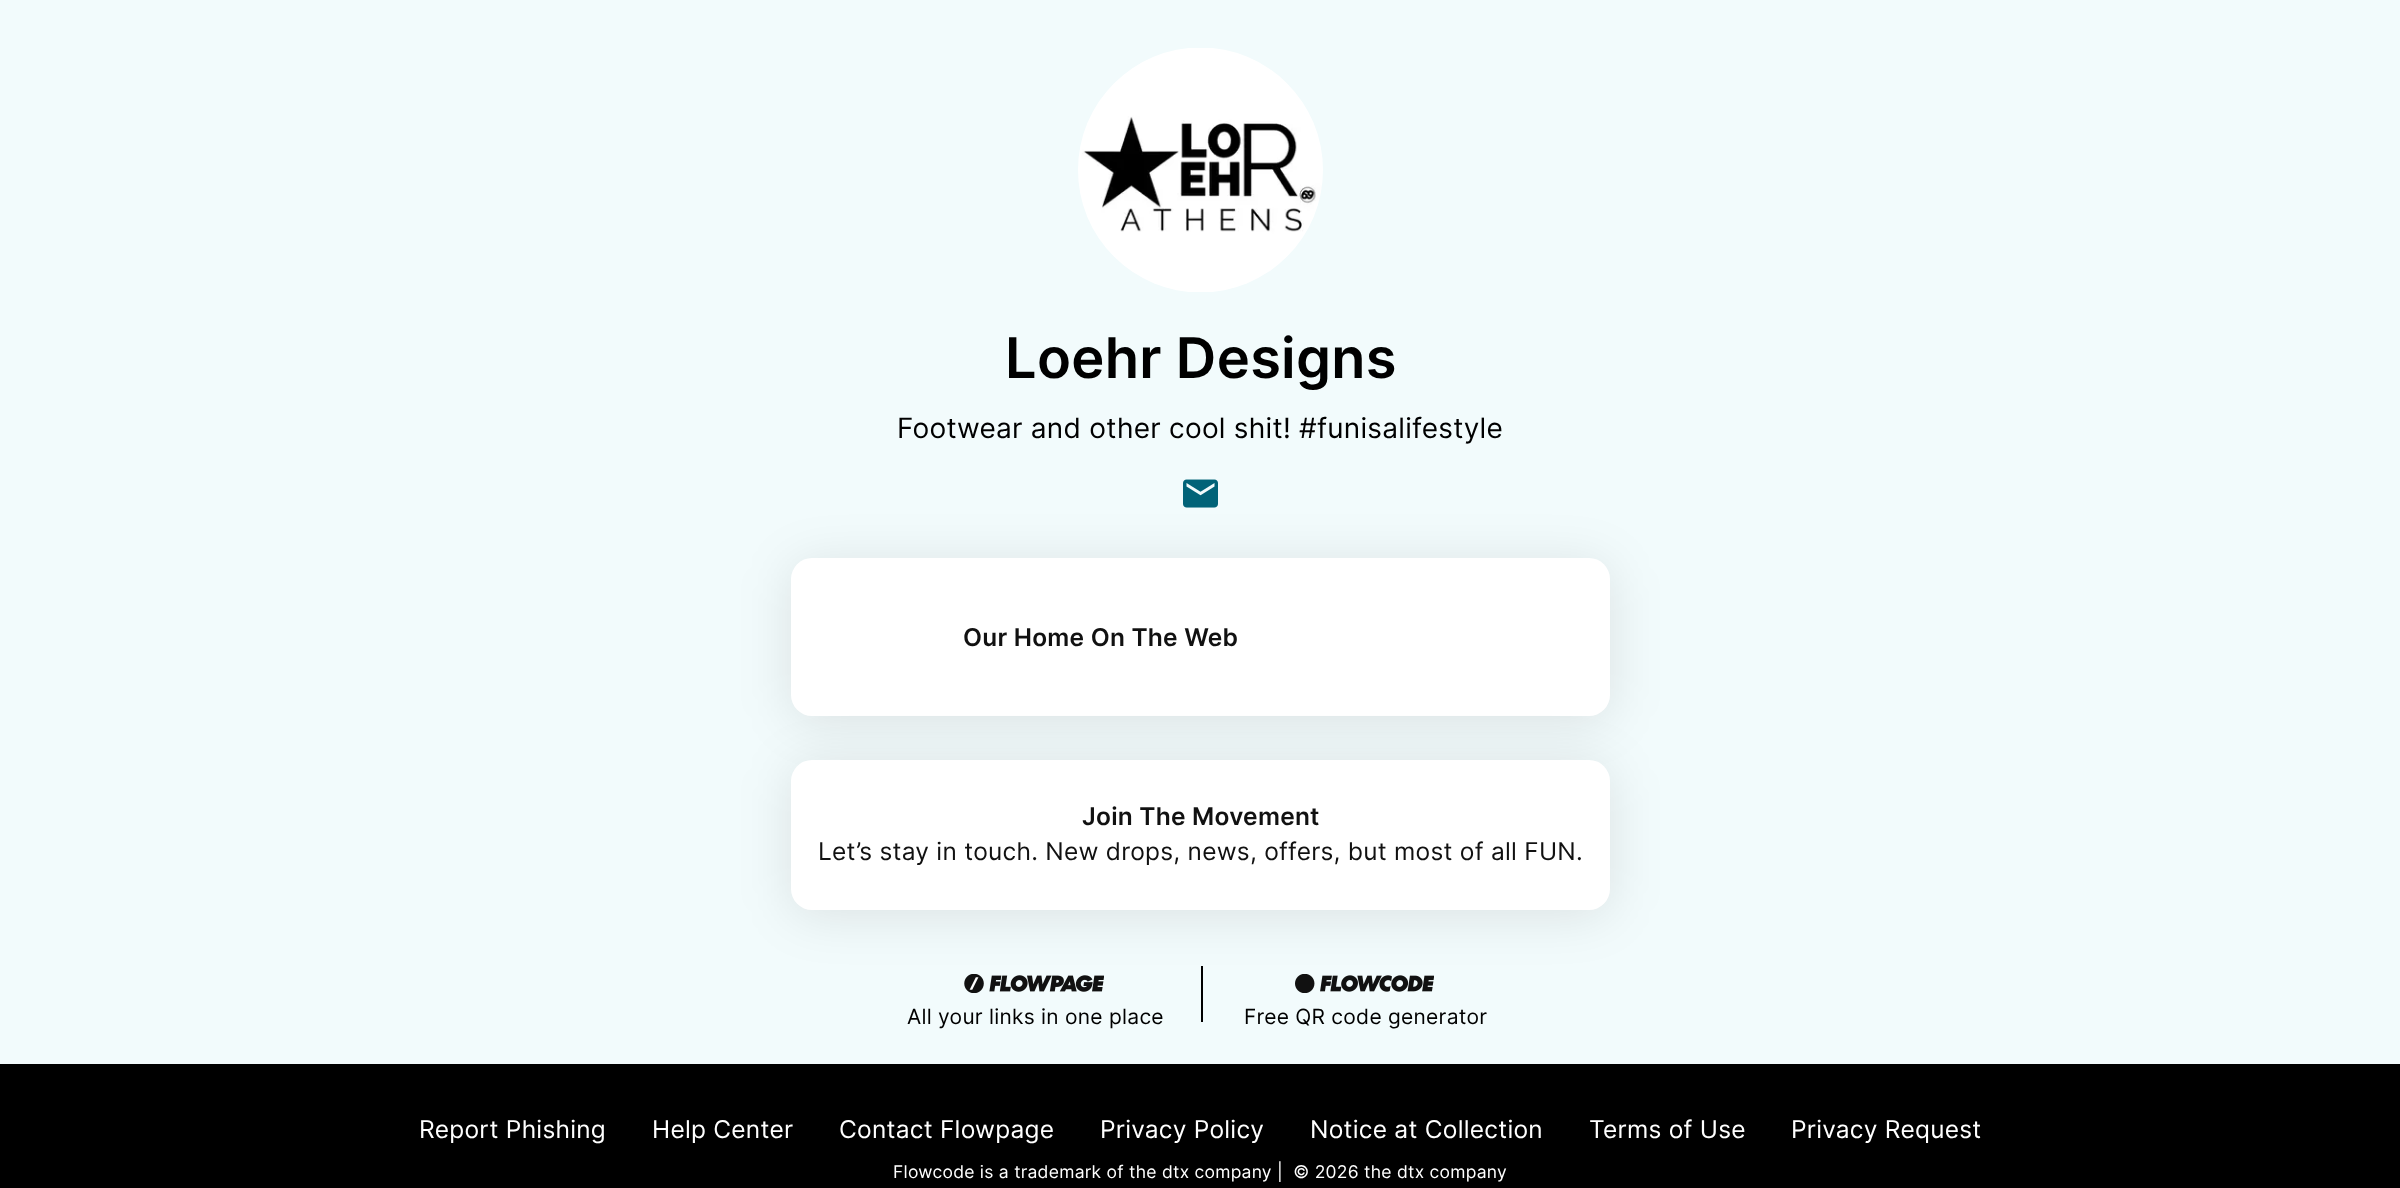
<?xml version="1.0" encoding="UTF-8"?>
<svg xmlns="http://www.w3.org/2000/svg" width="2400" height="1188">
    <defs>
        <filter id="blur1" x="-50%" y="-200%" width="200%" height="500%"><feGaussianBlur stdDeviation="26"/></filter>
    </defs>
    <rect width="100%" height="100%" fill="#F2FBFC"/>
    <image x="1078" y="48" width="245" height="244" href="img_01.png"/>
    <text x="1005" y="378" font-family="Inter" font-size="56" font-weight="600" letter-spacing="0.25" fill="#000000">Loehr Designs</text>
    <text x="897" y="438" font-family="Inter" font-size="28" letter-spacing="0.25" fill="#000000">Footwear and other cool shit! #funisalifestyle</text>
    <image x="1183" y="479" width="35" height="29" href="img_02.png"/>
    <rect x="791" y="564" width="819" height="157" rx="21" fill="#000000" fill-opacity="0.1" filter="url(#blur1)"/>
    <rect x="791" y="558" width="819" height="158" rx="21" fill="#FFFFFF"/>
    <text x="963" y="646" font-family="Inter" font-size="24.5" font-weight="600" letter-spacing="0.25" fill="#111111">Our Home On The Web</text>
    <rect x="791" y="765" width="819" height="150" rx="21" fill="#000000" fill-opacity="0.1" filter="url(#blur1)"/>
    <rect x="791" y="760" width="819" height="150" rx="21" fill="#FFFFFF"/>
    <text x="1082" y="825" font-family="Inter" font-size="24.5" font-weight="600" letter-spacing="0.25" fill="#111111">Join The Movement</text>
    <text x="818" y="860" font-family="Inter" font-size="24.5" letter-spacing="0.25" fill="#111111">Let’s stay in touch. New drops, news, offers, but most of all FUN.</text>
    <image x="964" y="974" width="140" height="19" href="img_03.png"/>
    <text x="907" y="1024" font-family="Inter" font-size="21" letter-spacing="0.25" fill="#000000">All your links in one place</text>
    <rect x="1201" y="966" width="2" height="56" fill="#000000"/>
    <image x="1295" y="974" width="139" height="19" href="img_04.png"/>
    <text x="1244" y="1024" font-family="Inter" font-size="21" letter-spacing="0.25" fill="#000000">Free QR code generator</text>
    <rect x="0" y="1064" width="2400" height="124" fill="#000000"/>
    <text x="419" y="1138" font-family="Inter" font-size="24.5" letter-spacing="0.25" fill="#FFFFFF">Report Phishing</text>
    <text x="652" y="1138" font-family="Inter" font-size="24.5" letter-spacing="0.25" fill="#FFFFFF">Help Center</text>
    <text x="839" y="1138" font-family="Inter" font-size="24.5" letter-spacing="0.25" fill="#FFFFFF">Contact Flowpage</text>
    <text x="1100" y="1138" font-family="Inter" font-size="24.5" letter-spacing="0.25" fill="#FFFFFF">Privacy Policy</text>
    <text x="1310" y="1138" font-family="Inter" font-size="24.5" letter-spacing="0.25" fill="#FFFFFF">Notice at Collection</text>
    <text x="1589" y="1138" font-family="Inter" font-size="24.5" letter-spacing="0.25" fill="#FFFFFF">Terms of Use</text>
    <text x="1791" y="1138" font-family="Inter" font-size="24.5" letter-spacing="0.25" fill="#FFFFFF">Privacy Request</text>
    <text x="893" y="1178" font-family="Inter" font-size="17.5" letter-spacing="0.25" fill="#FFFFFF" xml:space="preserve">Flowcode is a trademark of the dtx company |  © 2026 the dtx company</text>
</svg>
